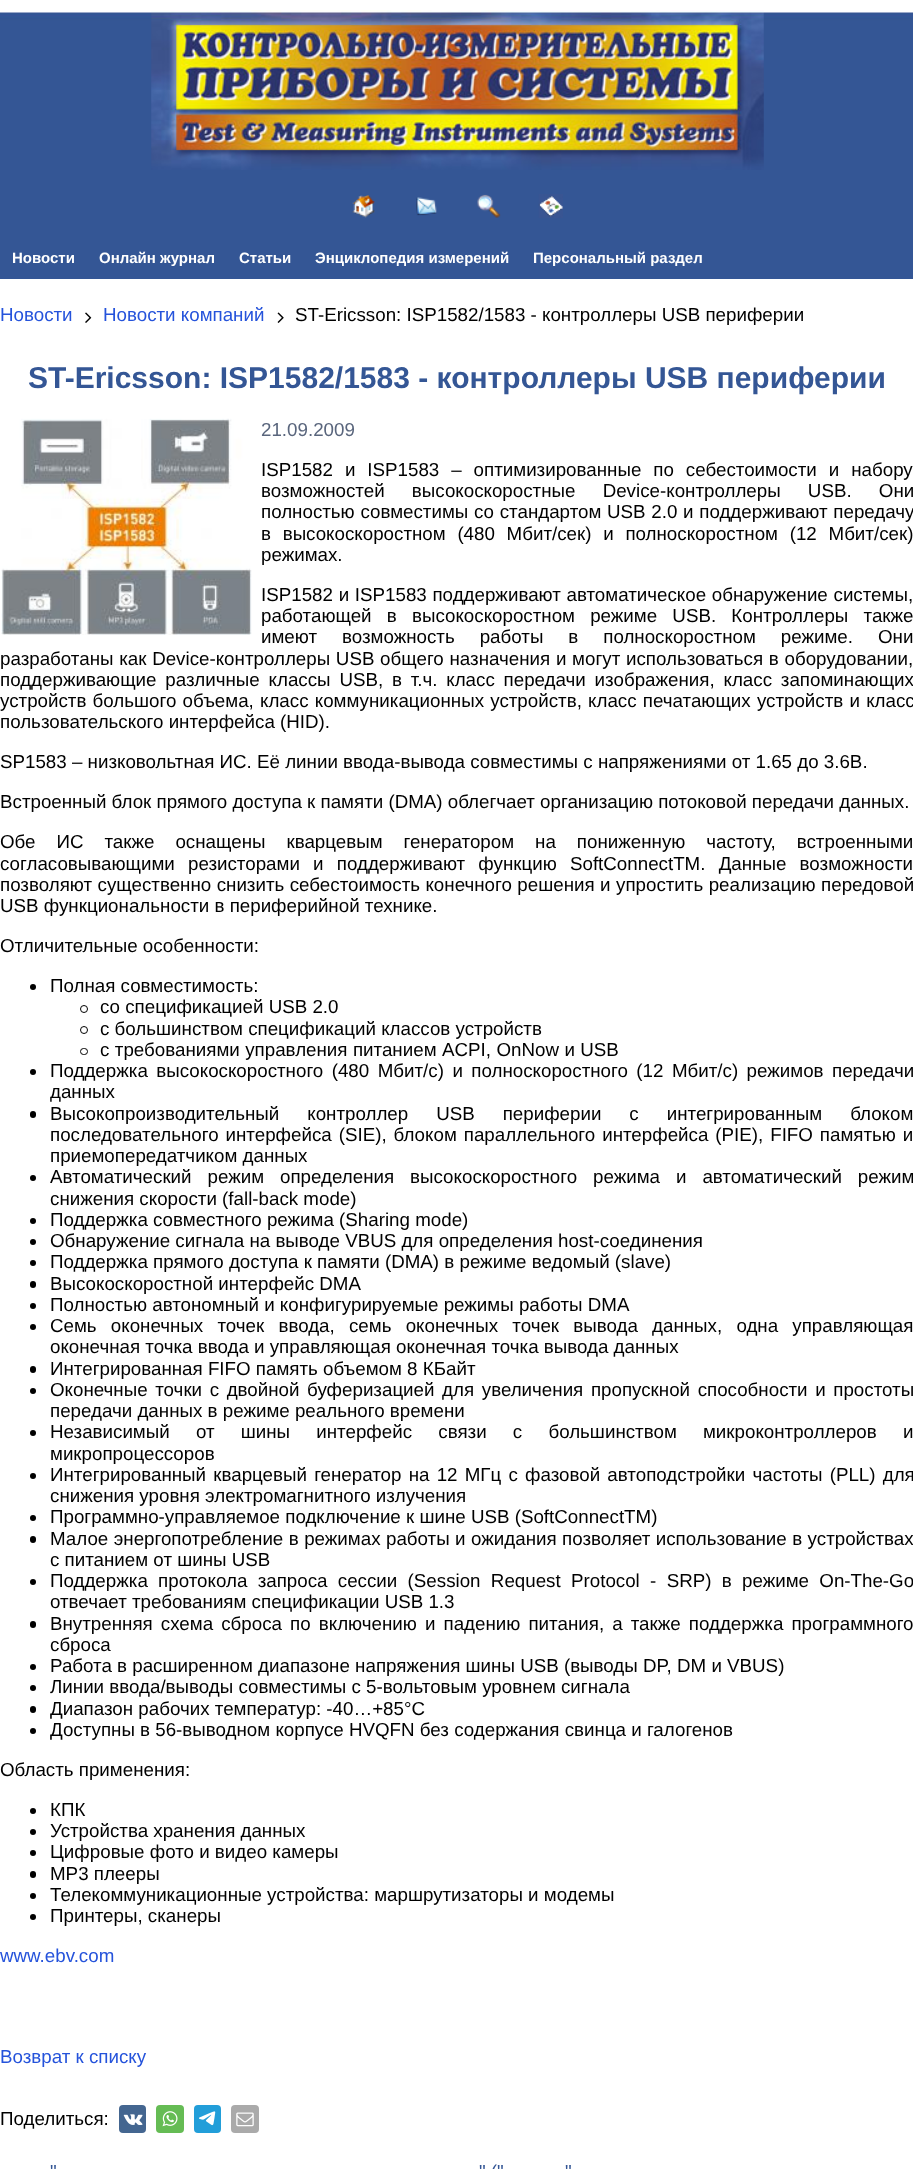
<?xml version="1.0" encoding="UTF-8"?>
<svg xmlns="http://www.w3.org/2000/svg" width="913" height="2169">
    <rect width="100%" height="100%" fill="#FFFFFF"/>
    <image x="0" y="12" width="913" height="163" href="img_01.png"/>
    <image x="151" y="10" width="613" height="160" href="img_02.png"/>
    <rect x="0" y="175" width="913" height="104" fill="#345695"/>
    <image x="352" y="195" width="23" height="23" href="img_03.png"/>
    <image x="416" y="197" width="21" height="19" href="img_04.png"/>
    <image x="477" y="194" width="24" height="24" href="img_05.png"/>
    <image x="538" y="194" width="25" height="24" href="img_06.png"/>
    <text x="12" y="263" font-family="Liberation Sans" font-size="15" font-weight="700" fill="#FFFFFF">Новости</text>
    <text x="99" y="263" font-family="Liberation Sans" font-size="15" font-weight="700" fill="#FFFFFF">Онлайн журнал</text>
    <text x="239" y="263" font-family="Liberation Sans" font-size="15" font-weight="700" fill="#FFFFFF">Статьи</text>
    <text x="315" y="263" font-family="Liberation Sans" font-size="15" font-weight="700" fill="#FFFFFF">Энциклопедия измерений</text>
    <text x="533" y="263" font-family="Liberation Sans" font-size="15" font-weight="700" fill="#FFFFFF">Персональный раздел</text>
    <text x="0" y="321" font-family="Liberation Sans" font-size="18.75" fill="#2553DB">Новости</text>
    <image x="85" y="312" width="7" height="11" href="img_07.png"/>
    <text x="103" y="321" font-family="Liberation Sans" font-size="18.75" fill="#2553DB">Новости компаний</text>
    <image x="277" y="312" width="7" height="11" href="img_08.png"/>
    <text x="295" y="321" font-family="Liberation Sans" font-size="18.75" fill="#000000">ST-Ericsson: ISP1582/1583 - контроллеры USB периферии</text>
    <text x="28" y="388" font-family="Liberation Sans" font-size="30" font-weight="700" fill="#345695">ST-Ericsson: ISP1582/1583 - контроллеры USB периферии</text>
    <image x="1" y="418" width="251" height="217" href="img_09.png"/>
    <text x="261" y="436" font-family="Liberation Sans" font-size="18.75" fill="#5A667D">21.09.2009</text>
    <text font-family="Liberation Sans" font-size="18.75" fill="#000000">
        <tspan x="261" y="476" word-spacing="6.75">ISP1582 и ISP1583 – оптимизированные по себестоимости и набору</tspan>
        <tspan x="261" y="497" word-spacing="22">возможностей высокоскоростные Device-контроллеры USB. Они</tspan>
        <tspan x="261" y="518" word-spacing="0.5">полностью совместимы со стандартом USB 2.0 и поддерживают передачу</tspan>
        <tspan x="261" y="540" word-spacing="6.5">в высокоскоростном (480 Мбит/сек) и полноскоростном (12 Мбит/сек)</tspan>
        <tspan x="261" y="561">режимах.</tspan>
    </text>
    <text font-family="Liberation Sans" font-size="18.75" fill="#000000">
        <tspan x="261" y="601" word-spacing="0.5">ISP1582 и ISP1583 поддерживают автоматическое обнаружение системы,</tspan>
        <tspan x="261" y="622" word-spacing="10">работающей в высокоскоростном режиме USB. Контроллеры также</tspan>
        <tspan x="261" y="643" word-spacing="19.75">имеют возможность работы в полноскоростном режиме. Они</tspan>
    </text>
    <text font-family="Liberation Sans" font-size="18.75" fill="#000000">
        <tspan x="0" y="665" word-spacing="0.5">разработаны как Device-контроллеры USB общего назначения и могут использоваться в оборудовании,</tspan>
        <tspan x="0" y="686" word-spacing="3.6">поддерживающие различные классы USB, в т.ч. класс передачи изображения, класс запоминающих</tspan>
        <tspan x="0" y="707" word-spacing="1">устройств большого объема, класс коммуникационных устройств, класс печатающих устройств и класс</tspan>
        <tspan x="0" y="728">пользовательского интерфейса (HID).</tspan>
    </text>
    <text x="0" y="768" font-family="Liberation Sans" font-size="18.75" fill="#000000">SP1583 – низковольтная ИС. Её линии ввода-вывода совместимы с напряжениями от 1.65 до 3.6В.</text>
    <text x="0" y="808" font-family="Liberation Sans" font-size="18.75" fill="#000000">Встроенный блок прямого доступа к памяти (DMA) облегчает организацию потоковой передачи данных.</text>
    <text font-family="Liberation Sans" font-size="18.75" fill="#000000">
        <tspan x="0" y="848" word-spacing="15.75">Обе ИС также оснащены кварцевым генератором на пониженную частоту, встроенными</tspan>
        <tspan x="0" y="870" word-spacing="8">согласовывающими резисторами и поддерживают функцию SoftConnectTM. Данные возможности</tspan>
        <tspan x="0" y="891" word-spacing="0.25">позволяют существенно снизить себестоимость конечного решения и упростить реализацию передовой</tspan>
        <tspan x="0" y="912">USB функциональности в периферийной технике.</tspan>
    </text>
    <text x="0" y="952" font-family="Liberation Sans" font-size="18.75" fill="#000000">Отличительные особенности:</text>
    <circle cx="33" cy="987" r="3" fill="#000000"/>
    <text x="50" y="992" font-family="Liberation Sans" font-size="18.75" fill="#000000">Полная совместимость:</text>
    <circle cx="84" cy="1009" r="3.5" fill="none" stroke="#000000"/>
    <text x="100" y="1013" font-family="Liberation Sans" font-size="18.75" fill="#000000">со спецификацией USB 2.0</text>
    <circle cx="84" cy="1030" r="3.5" fill="none" stroke="#000000"/>
    <text x="100" y="1035" font-family="Liberation Sans" font-size="18.75" fill="#000000">с большинством спецификаций классов устройств</text>
    <rect x="80.5" y="1048.5" width="7" height="6" rx="3" fill="none" stroke="#000000"/>
    <text x="100" y="1056" word-spacing="0.25" font-family="Liberation Sans" font-size="18.75" fill="#000000">с требованиями управления питанием ACPI, OnNow и USB</text>
    <circle cx="33" cy="1072" r="3" fill="#000000"/>
    <text font-family="Liberation Sans" font-size="18.75" fill="#000000">
        <tspan x="50" y="1077" word-spacing="3.25">Поддержка высокоскоростного (480 Мбит/с) и полноскоростного (12 Мбит/с) режимов передачи</tspan>
        <tspan x="50" y="1098">данных</tspan>
    </text>
    <rect x="30" y="1111" width="6" height="7" rx="3" fill="#000000"/>
    <text font-family="Liberation Sans" font-size="18.75" fill="#000000">
        <tspan x="50" y="1120" word-spacing="22.75">Высокопроизводительный контроллер USB периферии с интегрированным блоком</tspan>
        <tspan x="50" y="1141" word-spacing="1.75">последовательного интерфейса (SIE), блоком параллельного интерфейса (PIE), FIFO памятью и</tspan>
        <tspan x="50" y="1162">приемопередатчиком данных</tspan>
    </text>
    <circle cx="33" cy="1178" r="3" fill="#000000"/>
    <text font-family="Liberation Sans" font-size="18.75" fill="#000000">
        <tspan x="50" y="1183" word-spacing="10.75">Автоматический режим определения высокоскоростного режима и автоматический режим</tspan>
        <tspan x="50" y="1205">снижения скорости (fall-back mode)</tspan>
    </text>
    <circle cx="33" cy="1221" r="3" fill="#000000"/>
    <text x="50" y="1226" font-family="Liberation Sans" font-size="18.75" fill="#000000">Поддержка совместного режима (Sharing mode)</text>
    <circle cx="33" cy="1242" r="3" fill="#000000"/>
    <text x="50" y="1247" font-family="Liberation Sans" font-size="18.75" fill="#000000">Обнаружение сигнала на выводе VBUS для определения host-соединения</text>
    <circle cx="33" cy="1263" r="3" fill="#000000"/>
    <text x="50" y="1268" font-family="Liberation Sans" font-size="18.75" fill="#000000">Поддержка прямого доступа к памяти (DMA) в режиме ведомый (slave)</text>
    <rect x="30" y="1281" width="6" height="7" rx="3" fill="#000000"/>
    <text x="50" y="1290" font-family="Liberation Sans" font-size="18.75" fill="#000000">Высокоскоростной интерфейс DMA</text>
    <circle cx="33" cy="1306" r="3" fill="#000000"/>
    <text x="50" y="1311" font-family="Liberation Sans" font-size="18.75" fill="#000000">Полностью автономный и конфигурируемые режимы работы DMA</text>
    <circle cx="33" cy="1327" r="3" fill="#000000"/>
    <text font-family="Liberation Sans" font-size="18.75" fill="#000000">
        <tspan x="50" y="1332" word-spacing="9">Семь оконечных точек ввода, семь оконечных точек вывода данных, одна управляющая</tspan>
        <tspan x="50" y="1353">оконечная точка ввода и управляющая оконечная точка вывода данных</tspan>
    </text>
    <rect x="30" y="1366" width="6" height="7" rx="3" fill="#000000"/>
    <text x="50" y="1375" font-family="Liberation Sans" font-size="18.75" fill="#000000">Интегрированная FIFO память объемом 8 КБайт</text>
    <circle cx="33" cy="1391" r="3" fill="#000000"/>
    <text font-family="Liberation Sans" font-size="18.75" fill="#000000">
        <tspan x="50" y="1396" word-spacing="2.4">Оконечные точки с двойной буферизацией для увеличения пропускной способности и простоты</tspan>
        <tspan x="50" y="1417">передачи данных в режиме реального времени</tspan>
    </text>
    <circle cx="33" cy="1433" r="3" fill="#000000"/>
    <text font-family="Liberation Sans" font-size="18.75" fill="#000000">
        <tspan x="50" y="1438" word-spacing="21">Независимый от шины интерфейс связи с большинством микроконтроллеров и</tspan>
        <tspan x="50" y="1460">микропроцессоров</tspan>
    </text>
    <circle cx="33" cy="1476" r="3" fill="#000000"/>
    <text font-family="Liberation Sans" font-size="18.75" fill="#000000">
        <tspan x="50" y="1481" word-spacing="2">Интегрированный кварцевый генератор на 12 МГц с фазовой автоподстройки частоты (PLL) для</tspan>
        <tspan x="50" y="1502">снижения уровня электромагнитного излучения</tspan>
    </text>
    <circle cx="33" cy="1518" r="3" fill="#000000"/>
    <text x="50" y="1523" font-family="Liberation Sans" font-size="18.75" fill="#000000">Программно-управляемое подключение к шине USB (SoftConnectTM)</text>
    <rect x="30" y="1536" width="6" height="7" rx="3" fill="#000000"/>
    <text font-family="Liberation Sans" font-size="18.75" fill="#000000">
        <tspan x="50" y="1545" word-spacing="0.25">Малое энергопотребление в режимах работы и ожидания позволяет использование в устройствах</tspan>
        <tspan x="50" y="1566">с питанием от шины USB</tspan>
    </text>
    <circle cx="33" cy="1582" r="3" fill="#000000"/>
    <text font-family="Liberation Sans" font-size="18.75" fill="#000000">
        <tspan x="50" y="1587" word-spacing="5.1">Поддержка протокола запроса сессии (Session Request Protocol - SRP) в режиме On-The-Go</tspan>
        <tspan x="50" y="1608">отвечает требованиям спецификации USB 1.3</tspan>
    </text>
    <rect x="30" y="1621" width="6" height="7" rx="3" fill="#000000"/>
    <text font-family="Liberation Sans" font-size="18.75" fill="#000000">
        <tspan x="50" y="1630" word-spacing="2.9">Внутренняя схема сброса по включению и падению питания, а также поддержка программного</tspan>
        <tspan x="50" y="1651">сброса</tspan>
    </text>
    <circle cx="33" cy="1667" r="3" fill="#000000"/>
    <text x="50" y="1672" font-family="Liberation Sans" font-size="18.75" fill="#000000">Работа в расширенном диапазоне напряжения шины USB (выводы DP, DM и VBUS)</text>
    <circle cx="33" cy="1688" r="3" fill="#000000"/>
    <text x="50" y="1693" font-family="Liberation Sans" font-size="18.75" fill="#000000">Линии ввода/выводы совместимы с 5-вольтовым уровнем сигнала</text>
    <rect x="30" y="1706" width="6" height="7" rx="3" fill="#000000"/>
    <text x="50" y="1715" font-family="Liberation Sans" font-size="18.75" fill="#000000">Диапазон рабочих температур: -40…+85°C</text>
    <circle cx="33" cy="1731" r="3" fill="#000000"/>
    <text x="50" y="1736" font-family="Liberation Sans" font-size="18.75" fill="#000000">Доступны в 56-выводном корпусе HVQFN без содержания свинца и галогенов</text>
    <text x="0" y="1776" font-family="Liberation Sans" font-size="18.75" fill="#000000">Область применения:</text>
    <circle cx="33" cy="1811" r="3" fill="#000000"/>
    <text x="50" y="1816" font-family="Liberation Sans" font-size="18.75" fill="#000000">КПК</text>
    <circle cx="33" cy="1832" r="3" fill="#000000"/>
    <text x="50" y="1837" font-family="Liberation Sans" font-size="18.75" fill="#000000">Устройства хранения данных</text>
    <circle cx="33" cy="1853" r="3" fill="#000000"/>
    <text x="50" y="1858" font-family="Liberation Sans" font-size="18.75" fill="#000000">Цифровые фото и видео камеры</text>
    <rect x="30" y="1871" width="6" height="7" rx="3" fill="#000000"/>
    <text x="50" y="1880" font-family="Liberation Sans" font-size="18.75" fill="#000000">MP3 плееры</text>
    <circle cx="33" cy="1896" r="3" fill="#000000"/>
    <text x="50" y="1901" font-family="Liberation Sans" font-size="18.75" fill="#000000">Телекоммуникационные устройства: маршрутизаторы и модемы</text>
    <circle cx="33" cy="1917" r="3" fill="#000000"/>
    <text x="50" y="1922" font-family="Liberation Sans" font-size="18.75" fill="#000000">Принтеры, сканеры</text>
    <text x="0" y="1962" font-family="Liberation Sans" font-size="18.75" fill="#2553DB">www.ebv.com</text>
    <text x="0" y="2063" font-family="Liberation Sans" font-size="18.75" fill="#2553DB">Возврат к списку</text>
    <text x="0" y="2125" font-family="Liberation Sans" font-size="18.75" fill="#000000">Поделиться:</text>
    <rect x="119" y="2105" width="27" height="28" rx="4" fill="#446690"/>
    <image x="123" y="2114" width="20" height="11" href="img_10.png"/>
    <rect x="156" y="2105" width="28" height="28" rx="4" fill="#65BC54"/>
    <image x="162" y="2111" width="16" height="16" href="img_11.png"/>
    <rect x="194" y="2105" width="27" height="28" rx="4" fill="#229ED9"/>
    <image x="199" y="2111" width="17" height="15" href="img_12.png"/>
    <rect x="231" y="2105" width="28" height="28" rx="4" fill="#AAAAAA"/>
    <image x="236" y="2112" width="18" height="15" href="img_13.png"/>
    <text x="50" y="2178" font-family="Liberation Sans" font-size="18.75" fill="#345695">"</text>
    <text x="479" y="2178" font-family="Liberation Sans" font-size="18.75" fill="#345695">" ("</text>
    <text x="565" y="2178" font-family="Liberation Sans" font-size="18.75" fill="#345695">"</text>
</svg>
